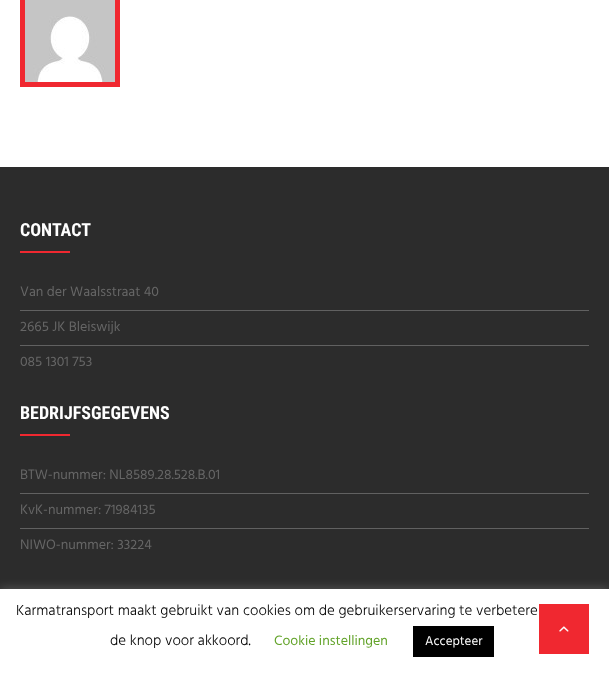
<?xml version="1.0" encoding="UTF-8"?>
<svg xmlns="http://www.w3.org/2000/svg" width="609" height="674">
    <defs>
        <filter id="blur1" x="-50%" y="-200%" width="200%" height="500%"><feGaussianBlur stdDeviation="5"/></filter>
    </defs>
    <rect width="100%" height="100%" fill="#FFFFFF"/>
    <rect x="22.5" y="-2.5" width="95" height="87" fill="none" stroke="#F02830" stroke-width="5"/>
    <image x="25" y="0" width="90" height="82" href="img_01.png"/>
    <rect x="0" y="167" width="609" height="422" fill="#2C2C2C"/>
    <text x="20" y="236" font-family="Roboto Condensed" font-size="18" font-weight="700" fill="#FFFFFF">CONTACT</text>
    <rect x="20" y="251" width="50" height="2" fill="#F02830"/>
    <text x="20" y="296" font-family="Hind" font-size="14" fill="#666666">Van der Waalsstraat 40</text>
    <rect x="20" y="310" width="569" height="1" fill="#616161"/>
    <text x="20" y="331" font-family="Hind" font-size="14" fill="#666666">2665 JK Bleiswijk</text>
    <rect x="20" y="345" width="569" height="1" fill="#616161"/>
    <text x="20" y="366" font-family="Hind" font-size="14" fill="#666666">085 1301 753</text>
    <text x="20" y="419" font-family="Roboto Condensed" font-size="18" font-weight="700" fill="#FFFFFF">BEDRIJFSGEGEVENS</text>
    <rect x="20" y="434" width="50" height="2" fill="#F02830"/>
    <text x="20" y="479" font-family="Hind" font-size="14" fill="#666666">BTW-nummer: NL8589.28.528.B.01</text>
    <rect x="20" y="493" width="569" height="1" fill="#616161"/>
    <text x="20" y="514" font-family="Hind" font-size="14" fill="#666666">KvK-nummer: 71984135</text>
    <rect x="20" y="528" width="569" height="1" fill="#616161"/>
    <text x="20" y="549" font-family="Hind" font-size="14" fill="#666666">NIWO-nummer: 33224</text>
    <rect x="0" y="588" width="609" height="85" fill="#ACABAB" fill-opacity="0.3" filter="url(#blur1)"/>
    <rect x="0" y="589" width="609" height="85" fill="#FFFFFF"/>
    <rect x="539" y="604" width="50" height="50" fill="#F02830"/>
    <image x="559" y="626" width="10" height="6" href="img_02.png"/>
    <text x="16" y="615" font-family="Hind" font-size="15" font-weight="300" fill="#000000">Karmatransport maakt gebruikt van cookies om de gebruikerservaring te verbetere</text>
    <text x="110" y="645" font-family="Hind" font-size="15" font-weight="300" fill="#000000">de knop voor akkoord.</text>
    <text x="274" y="645" font-family="Hind" font-size="14" fill="#62A329">Cookie instellingen</text>
    <rect x="413" y="626" width="81" height="31" fill="#000000"/>
    <text x="425" y="645" font-family="Hind" font-size="13" fill="#FFFFFF">Accepteer</text>
</svg>
